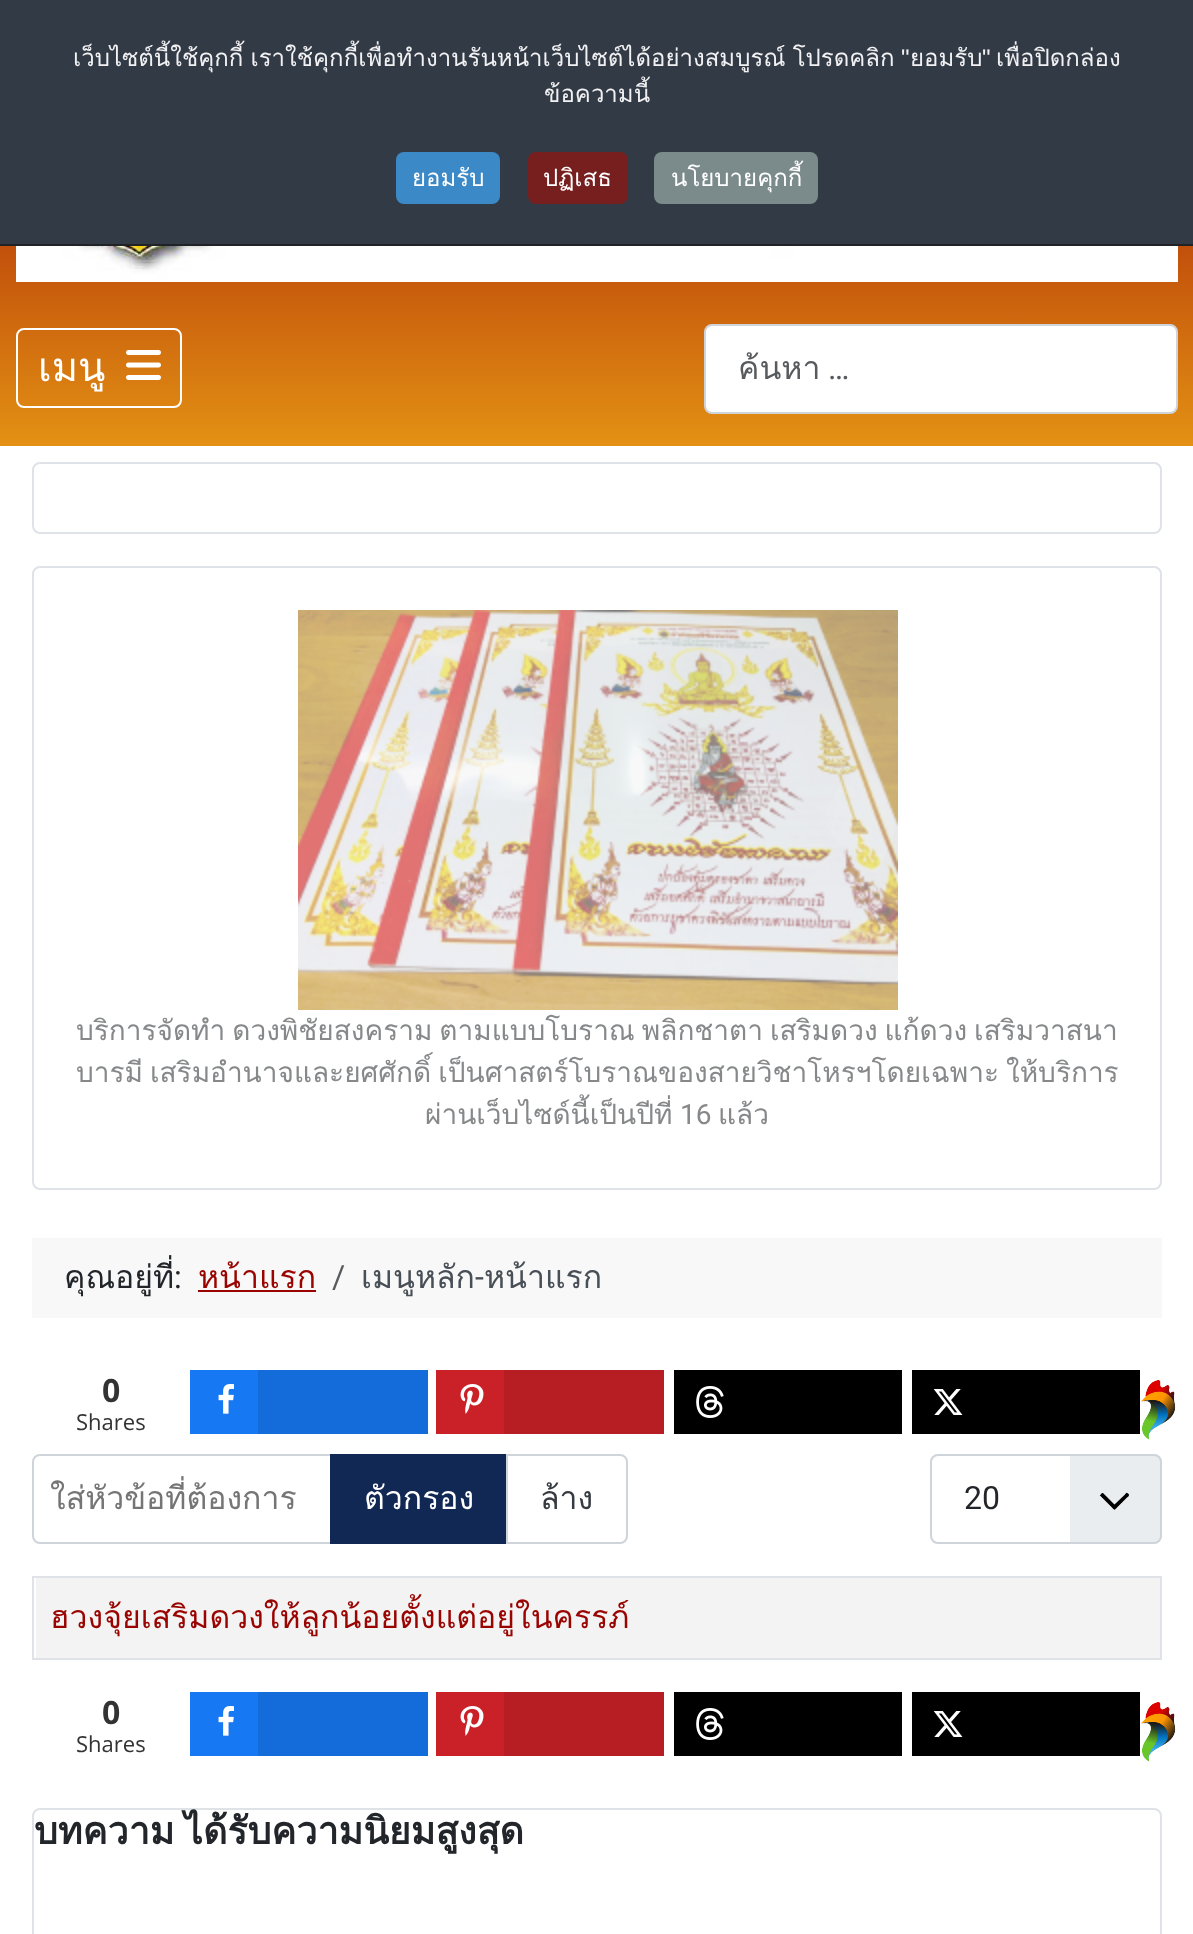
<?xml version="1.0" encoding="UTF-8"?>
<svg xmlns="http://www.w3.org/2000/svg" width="1193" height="1934">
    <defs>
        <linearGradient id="g1" gradientUnits="userSpaceOnUse" x1="597" y1="0" x2="597" y2="446"><stop offset="0" stop-color="#990000"/><stop offset="1" stop-color="#E39114"/></linearGradient>
        <clipPath id="clip1"><rect x="738" y="342" width="406" height="50"/></clipPath>
    </defs>
    <rect width="100%" height="100%" fill="#FFFFFF"/>
    <rect x="0" y="0" width="1193" height="244" fill="#323A45"/>
    <rect x="0" y="244" width="1193" height="2" fill="#202226"/>
    <text x="73" y="66" word-spacing="-1" font-family="Loma" font-size="24" fill="#F1F1F3">เว็บไซต์นี้ใช้คุกกี้ เราใช้คุกกี้เพื่อทำงานรันหน้าเว็บไซต์ได้อย่างสมบูรณ์ โปรดคลิก</text>
    <text x="901" y="66" font-family="Liberation Sans" font-size="24" fill="#F1F1F3">"</text>
    <text x="910" y="66" font-family="Loma" font-size="24" fill="#F1F1F3">ยอมรับ</text>
    <text x="982" y="66" font-family="Liberation Sans" font-size="24" fill="#F1F1F3">"</text>
    <text x="996" y="66" font-family="Loma" font-size="24" fill="#F1F1F3">เพื่อปิดกล่อง</text>
    <text x="544" y="102" font-family="Loma" font-size="24" fill="#F1F1F3">ข้อความนี้</text>
    <rect x="396" y="152" width="104" height="52" rx="8" fill="#3B89C7"/>
    <text x="412" y="186" font-family="Loma" font-size="24" fill="#FFFFFF">ยอมรับ</text>
    <rect x="528" y="152" width="100" height="52" rx="8" fill="#771F1F"/>
    <text x="543" y="186" font-family="Loma" font-size="24" fill="#FFFFFF">ปฏิเสธ</text>
    <rect x="654" y="152" width="164" height="52" rx="8" fill="#7B8A8B"/>
    <text x="671" y="186" font-family="Loma" font-size="24" fill="#FFFFFF">นโยบายคุกกี้</text>
    <rect x="0" y="246" width="1193" height="200" fill="url(#g1)"/>
    <image x="16" y="246" width="1162" height="36" href="img_01.png"/>
    <rect x="17" y="329" width="164" height="78" rx="7" fill="none" stroke="#FFFFFF" stroke-width="2"/>
    <text x="38" y="381" font-family="Loma" font-size="40" fill="#FFFFFF">เมนู</text>
    <image x="126" y="350" width="35" height="30" href="img_02.png"/>
    <rect x="705" y="325" width="472" height="88" rx="7" fill="#FFFFFF" stroke="#CED4DA" stroke-width="2"/>
    <g clip-path="url(#clip1)">
        <text x="738" y="379" font-family="Loma" font-size="32" fill="#585B5E">ค้นหา</text>
    </g>
    <text x="828" y="379" font-family="Roboto" font-size="32" fill="#585B5E">…</text>
    <rect x="33" y="463" width="1128" height="70" rx="7" fill="none" stroke="#DFE3E7" stroke-width="2"/>
    <rect x="33" y="567" width="1128" height="622" rx="7" fill="none" stroke="#DFE3E7" stroke-width="2"/>
    <image x="298" y="610" width="600" height="400" href="img_03.png"/>
    <text font-family="Loma" font-size="28" fill="#86888A">
        <tspan x="76" y="1040" word-spacing="-2.5">บริการจัดทำ ดวงพิชัยสงคราม ตามแบบโบราณ พลิกชาตา เสริมดวง แก้ดวง เสริมวาสนา</tspan>
        <tspan x="76" y="1082" word-spacing="-2.5">บารมี เสริมอำนาจและยศศักดิ์ เป็นศาสตร์โบราณของสายวิชาโหรฯโดยเฉพาะ ให้บริการ</tspan>
    </text>
    <text x="425" y="1124" font-family="Loma" font-size="28" fill="#86888A">ผ่านเว็บไซด์นี้เป็นปีที่</text>
    <text x="680" y="1124" font-family="Roboto" font-size="28" fill="#86888A">16</text>
    <text x="718" y="1124" font-family="Loma" font-size="28" fill="#86888A">แล้ว</text>
    <rect x="32" y="1238" width="1130" height="80" fill="#F8F8F8"/>
    <text x="64" y="1288" font-family="Loma" font-size="32" fill="#22262A">คุณอยู่ที่</text>
    <text x="174" y="1288" font-family="Roboto" font-size="32" fill="#22262A">:</text>
    <text x="198" y="1288" font-family="Loma" font-size="32" fill="#990300">หน้าแรก</text>
    <rect x="198" y="1290" width="118" height="2" fill="#990300"/>
    <text x="332" y="1288" font-family="Roboto" font-size="32" fill="#585B5E">/</text>
    <text x="361" y="1288" font-family="Loma" font-size="32" fill="#484F56">เมนูหลัก</text>
    <text x="475" y="1288" font-family="Roboto" font-size="32" fill="#484F56">-</text>
    <text x="484" y="1288" font-family="Loma" font-size="32" fill="#484F56">หน้าแรก</text>
    <text x="102" y="1402" font-family="Open Sans" font-size="32" font-weight="700" fill="#333333">0</text>
    <text x="76" y="1430" font-family="Open Sans" font-size="22" fill="#333333">Shares</text>
    <rect x="190" y="1370" width="68" height="64" fill="#1678F2"/>
    <image x="218" y="1384" width="16" height="30" href="img_04.png"/>
    <rect x="258" y="1370" width="170" height="64" fill="#146CDA"/>
    <rect x="436" y="1370" width="68" height="64" fill="#CA2128"/>
    <image x="460" y="1384" width="24" height="30" href="img_05.png"/>
    <rect x="504" y="1370" width="160" height="64" fill="#B61E24"/>
    <rect x="674" y="1370" width="228" height="64" fill="#000000"/>
    <image x="696" y="1386" width="28" height="32" href="img_06.png"/>
    <rect x="912" y="1370" width="228" height="64" fill="#000000"/>
    <image x="933" y="1389" width="30" height="26" href="img_07.png"/>
    <image x="1141" y="1380" width="35" height="60" href="img_08.png"/>
    <path d="M 40 1455 H 331 V 1543 H 40 C 36 1543 33 1540 33 1536 V 1462 C 33 1458 36 1455 40 1455 Z" fill="none" stroke="#CED4DA" stroke-width="2"/>
    <text x="50" y="1509" font-family="Loma" font-size="32" fill="#757575">ใส่หัวข้อที่ต้องการ</text>
    <rect x="330" y="1454" width="176" height="90" fill="#112855"/>
    <text x="364" y="1509" font-family="Loma" font-size="32" fill="#FFFFFF">ตัวกรอง</text>
    <path d="M 507 1455 H 620 C 624 1455 627 1458 627 1462 V 1536 C 627 1540 624 1543 620 1543 H 507 Z" fill="none" stroke="#CED4DA" stroke-width="2"/>
    <text x="540" y="1509" font-family="Loma" font-size="32" fill="#353B41">ล้าง</text>
    <rect x="930" y="1454" width="232" height="90" rx="8" fill="#EAEDF0"/>
    <path d="M 1100 1495.5 L 1111.5 1507 C 1115 1510.5 1114 1510.5 1117.5 1507 L 1126.5 1498 C 1127 1497.5 1129.5 1496 1129 1494.5 L 1128 1493.5 C 1126.5 1492 1126.5 1493 1124.5 1495 L 1114.5 1504.5 L 1103 1493 C 1102 1492.5 1100.5 1494 1100.5 1495 C 1099.5 1495 1100 1495.5 1100 1495.5 Z" fill="#000000"/>
    <path d="M 938 1454 H 1070 V 1544 H 938 C 933.5 1544 930 1540.5 930 1536 V 1462 C 930 1457.5 933.5 1454 938 1454 Z" fill="#FFFFFF"/>
    <rect x="931" y="1455" width="230" height="88" rx="7" fill="none" stroke="#CED4DA" stroke-width="2"/>
    <text x="964" y="1509" font-family="Roboto" font-size="32" fill="#22262A">20</text>
    <rect x="32" y="1576" width="1130" height="2" fill="#DFE3E7"/>
    <rect x="32" y="1658" width="1130" height="2" fill="#DFE3E7"/>
    <rect x="36" y="1578" width="1124" height="80" fill="#F3F3F3"/>
    <rect x="1160" y="1576" width="2" height="84" fill="#DFE3E7"/>
    <rect x="32" y="1576" width="2" height="84" fill="#DFE3E7"/>
    <text x="50" y="1628" font-family="Loma" font-size="32" fill="#990300">ฮวงจุ้ยเสริมดวงให้ลูกน้อยตั้งแต่อยู่ในครรภ์</text>
    <text x="102" y="1724" font-family="Open Sans" font-size="32" font-weight="700" fill="#333333">0</text>
    <text x="76" y="1752" font-family="Open Sans" font-size="22" fill="#333333">Shares</text>
    <rect x="190" y="1692" width="68" height="64" fill="#1678F2"/>
    <image x="218" y="1706" width="16" height="30" href="img_04.png"/>
    <rect x="258" y="1692" width="170" height="64" fill="#146CDA"/>
    <rect x="436" y="1692" width="68" height="64" fill="#CA2128"/>
    <image x="460" y="1706" width="24" height="30" href="img_05.png"/>
    <rect x="504" y="1692" width="160" height="64" fill="#B61E24"/>
    <rect x="674" y="1692" width="228" height="64" fill="#000000"/>
    <image x="696" y="1708" width="28" height="32" href="img_06.png"/>
    <rect x="912" y="1692" width="228" height="64" fill="#000000"/>
    <image x="933" y="1711" width="30" height="26" href="img_07.png"/>
    <image x="1141" y="1702" width="35" height="60" href="img_08.png"/>
    <rect x="33" y="1809" width="1128" height="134" rx="7" fill="none" stroke="#DFE3E7" stroke-width="2"/>
    <text x="34" y="1844" word-spacing="-3" font-family="Loma" font-size="37.5" font-weight="700" fill="#22262A">บทความ ได้รับความนิยมสูงสุด</text>
</svg>
